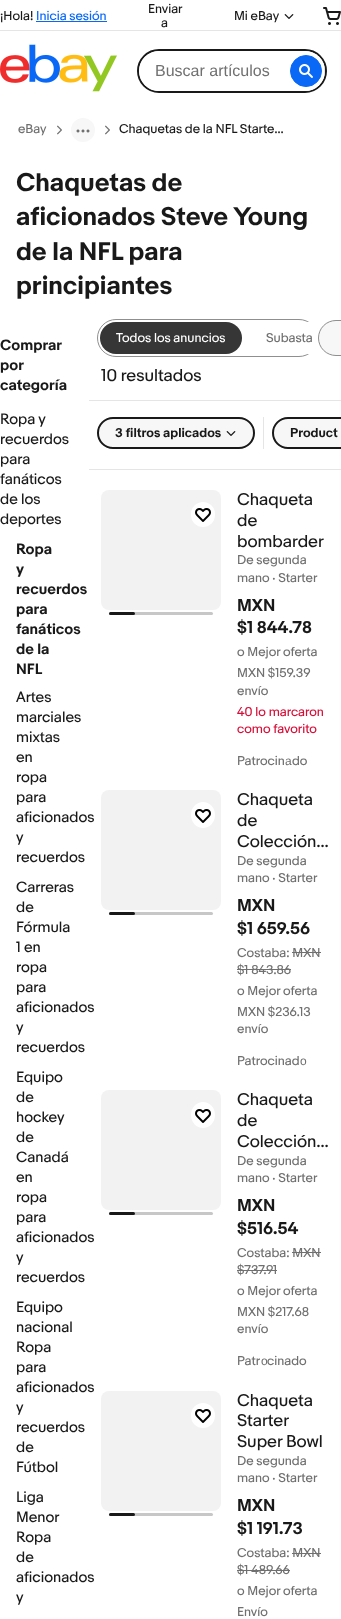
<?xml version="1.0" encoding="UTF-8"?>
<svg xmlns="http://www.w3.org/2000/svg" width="341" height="1619">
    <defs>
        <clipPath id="clip1"><rect x="139" y="51" width="186" height="40" rx="20"/></clipPath>
    </defs>
    <rect width="100%" height="100%" fill="#FFFFFF"/>
    <text x="0" y="20" font-family="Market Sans" font-size="12" fill="#191919">¡Hola!</text>
    <text x="36" y="20" font-family="Market Sans" font-size="12" fill="#0968F6">Inicia sesión</text>
    <rect x="36" y="21" width="71" height="1" fill="#0968F6"/>
    <text x="148" y="13" font-family="Market Sans" font-size="12" fill="#191919">Enviar</text>
    <text x="161" y="27" font-family="Market Sans" font-size="12" fill="#191919">a</text>
    <text x="234" y="20" font-family="Market Sans" font-size="12" fill="#191919">Mi eBay</text>
    <image x="284" y="14" width="10" height="5" href="img_01.png"/>
    <image x="323" y="7" width="18" height="18" href="img_02.png"/>
    <image x="0" y="44" width="117" height="48" href="img_03.png"/>
    <rect x="138" y="50" width="188" height="42" rx="21" fill="none" stroke="#191919" stroke-width="2"/>
    <g clip-path="url(#clip1)">
        <rect x="324" y="65" width="1" height="12" fill="#E5E5E5"/>
        <path d="M 159 51 H 324 V 91 H 159 C 148 91 139 82 139 71 C 139 60 148 51 159 51 Z" fill="#FFFFFF"/>
    </g>
    <text x="155" y="76" font-family="Liberation Sans" font-size="16" fill="#707070">Buscar artículos</text>
    <circle cx="306" cy="71" r="15.5" fill="#0968F6" stroke="#0968F6"/>
    <image x="299" y="64" width="14" height="14" href="img_04.png"/>
    <text x="18" y="133" font-family="Market Sans" font-size="12" fill="#707070">eBay</text>
    <image x="57" y="125" width="5" height="10" href="img_05.png"/>
    <circle cx="83" cy="130" r="12" fill="#F7F7F7"/>
    <image x="76" y="129" width="14" height="4" href="img_06.png"/>
    <image x="105" y="125" width="5" height="10" href="img_05.png"/>
    <text x="119" y="133" font-family="Market Sans" font-size="12" fill="#191919">Chaquetas de la NFL Starte…</text>
    <text font-family="Market Sans" font-size="24" font-weight="700" fill="#191919">
        <tspan x="16" y="191">Chaquetas de</tspan>
        <tspan x="16" y="225">aficionados Steve Young</tspan>
        <tspan x="16" y="260">de la NFL para</tspan>
        <tspan x="16" y="294">principiantes</tspan>
    </text>
    <text font-family="Market Sans" font-size="14" font-weight="700" fill="#191919">
        <tspan x="0" y="350">Comprar</tspan>
        <tspan x="0" y="370">por</tspan>
        <tspan x="0" y="390">categoría</tspan>
    </text>
    <text font-family="Market Sans" font-size="14" fill="#191919">
        <tspan x="0" y="424">Ropa y</tspan>
        <tspan x="0" y="444">recuerdos</tspan>
        <tspan x="0" y="464">para</tspan>
        <tspan x="0" y="484">fanáticos</tspan>
        <tspan x="0" y="504">de los</tspan>
        <tspan x="0" y="524">deportes</tspan>
    </text>
    <text font-family="Market Sans" font-size="14" font-weight="700" fill="#191919">
        <tspan x="16" y="554">Ropa</tspan>
        <tspan x="16" y="574">y</tspan>
        <tspan x="16" y="594">recuerdos</tspan>
        <tspan x="16" y="614">para</tspan>
        <tspan x="16" y="634">fanáticos</tspan>
        <tspan x="16" y="654">de la</tspan>
        <tspan x="16" y="674">NFL</tspan>
    </text>
    <text font-family="Market Sans" font-size="14" fill="#191919">
        <tspan x="16" y="702">Artes</tspan>
        <tspan x="16" y="722">marciales</tspan>
        <tspan x="16" y="742">mixtas</tspan>
        <tspan x="16" y="762">en</tspan>
        <tspan x="16" y="782">ropa</tspan>
        <tspan x="16" y="802">para</tspan>
        <tspan x="16" y="822">aficionados</tspan>
        <tspan x="16" y="842">y</tspan>
        <tspan x="16" y="862">recuerdos</tspan>
    </text>
    <text font-family="Market Sans" font-size="14" fill="#191919">
        <tspan x="16" y="892">Carreras</tspan>
        <tspan x="16" y="912">de</tspan>
        <tspan x="16" y="932">Fórmula</tspan>
        <tspan x="16" y="952">1 en</tspan>
        <tspan x="16" y="972">ropa</tspan>
        <tspan x="16" y="992">para</tspan>
        <tspan x="16" y="1012">aficionados</tspan>
        <tspan x="16" y="1032">y</tspan>
        <tspan x="16" y="1052">recuerdos</tspan>
    </text>
    <text font-family="Market Sans" font-size="14" fill="#191919">
        <tspan x="16" y="1082">Equipo</tspan>
        <tspan x="16" y="1102">de</tspan>
        <tspan x="16" y="1122">hockey</tspan>
        <tspan x="16" y="1142">de</tspan>
        <tspan x="16" y="1162">Canadá</tspan>
        <tspan x="16" y="1182">en</tspan>
        <tspan x="16" y="1202">ropa</tspan>
        <tspan x="16" y="1222">para</tspan>
        <tspan x="16" y="1242">aficionados</tspan>
        <tspan x="16" y="1262">y</tspan>
        <tspan x="16" y="1282">recuerdos</tspan>
    </text>
    <text font-family="Market Sans" font-size="14" fill="#191919">
        <tspan x="16" y="1312">Equipo</tspan>
        <tspan x="16" y="1332">nacional</tspan>
        <tspan x="16" y="1352">Ropa</tspan>
        <tspan x="16" y="1372">para</tspan>
        <tspan x="16" y="1392">aficionados</tspan>
        <tspan x="16" y="1412">y</tspan>
        <tspan x="16" y="1432">recuerdos</tspan>
        <tspan x="16" y="1452">de</tspan>
        <tspan x="16" y="1472">Fútbol</tspan>
    </text>
    <text font-family="Market Sans" font-size="14" fill="#191919">
        <tspan x="16" y="1502">Liga</tspan>
        <tspan x="16" y="1522">Menor</tspan>
        <tspan x="16" y="1542">Ropa</tspan>
        <tspan x="16" y="1562">de</tspan>
        <tspan x="16" y="1582">aficionados</tspan>
        <tspan x="16" y="1602">y</tspan>
    </text>
    <rect x="89" y="400" width="252" height="1" fill="#E5E5E5"/>
    <rect x="97.5" y="319.5" width="220" height="37" rx="18.5" fill="none" stroke="#8F8F8F"/>
    <rect x="100" y="322" width="142" height="32" rx="16" fill="#363636"/>
    <text x="116" y="342" font-family="Market Sans" font-size="12" fill="#FFFFFF">Todos los anuncios</text>
    <rect x="250" y="322" width="78" height="32" rx="16" fill="#FFFFFF"/>
    <text x="266" y="342" font-family="Market Sans" font-size="12" fill="#707070">Subasta</text>
    <path d="M 336 320 H 341 V 356 H 336 C 326 356 318 348 318 338 C 318 328 326 320 336 320 Z" fill="#F7F7F7"/>
    <rect x="318.5" y="320.5" width="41" height="35" rx="17.5" fill="none" stroke="#8F8F8F"/>
    <text x="101" y="381" font-family="Market Sans" font-size="16" fill="#191919">10 resultados</text>
    <rect x="89" y="469" width="252" height="1" fill="#E5E5E5"/>
    <rect x="263" y="417" width="1" height="32" fill="#E5E5E5"/>
    <rect x="98" y="418" width="156" height="30" rx="15" fill="#F7F7F7" stroke="#191919" stroke-width="2"/>
    <text x="115" y="437" font-family="Market Sans" font-size="12" font-weight="700" fill="#191919">3 filtros aplicados</text>
    <image x="226" y="431" width="10" height="5" href="img_07.png"/>
    <path d="M 288 417 H 341 V 449 H 288 C 279 449 272 442 272 433 C 272 424 279 417 288 417 Z" fill="#F7F7F7"/>
    <rect x="273" y="418" width="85" height="30" rx="15" fill="none" stroke="#191919" stroke-width="2"/>
    <text x="290" y="437" font-family="Market Sans" font-size="12" font-weight="700" fill="#191919">Product</text>
    <rect x="101" y="490" width="120" height="120" rx="8" fill="#F2F2F2"/>
    <rect x="191" y="502" width="24" height="25" rx="12" fill="#FFFFFF"/>
    <image x="195" y="508" width="16" height="14" href="img_08.png"/>
    <rect x="109" y="612" width="104" height="3" rx="1.5" fill="#C7C7C7"/>
    <rect x="109" y="612" width="26" height="3" rx="1.5" fill="#191919"/>
    <text font-family="Market Sans" font-size="16" fill="#191919">
        <tspan x="237" y="505">Chaqueta</tspan>
        <tspan x="237" y="526">de</tspan>
        <tspan x="237" y="547">bombarder</tspan>
    </text>
    <text font-family="Market Sans" font-size="12" fill="#707070">
        <tspan x="237" y="564">De segunda</tspan>
        <tspan x="237" y="582">mano · Starter</tspan>
    </text>
    <text font-family="Market Sans" font-size="16" font-weight="700" fill="#191919">
        <tspan x="237" y="611">MXN</tspan>
        <tspan x="237" y="633">$1 844.78</tspan>
    </text>
    <text font-family="Market Sans" font-size="12" fill="#707070">
        <tspan x="237" y="656">o Mejor oferta</tspan>
        <tspan x="237" y="677">MXN $159.39</tspan>
        <tspan x="237" y="695">envío</tspan>
    </text>
    <text font-family="Market Sans" font-size="12" fill="#D70F38">
        <tspan x="237" y="716">40 lo marcaron</tspan>
        <tspan x="237" y="733">como favorito</tspan>
    </text>
    <text x="237" y="765" font-family="Market Sans" font-size="12" fill="#707070">Patr</text>
    <text x="260" y="765" font-family="Market Sans" font-size="12" fill="#707070">ocin</text>
    <text x="285" y="765" font-family="Liberation Sans" font-size="12" fill="#707070">а</text>
    <text x="292" y="765" font-family="Market Sans" font-size="12" fill="#707070">do</text>
    <rect x="101" y="790" width="120" height="120" rx="8" fill="#F2F2F2"/>
    <ellipse cx="203" cy="815" rx="12" ry="13" fill="#FFFFFF"/>
    <image x="195" y="809" width="16" height="14" href="img_08.png"/>
    <rect x="109" y="912" width="104" height="3" rx="1.5" fill="#C7C7C7"/>
    <rect x="109" y="912" width="26" height="3" rx="1.5" fill="#191919"/>
    <text font-family="Market Sans" font-size="16" fill="#191919">
        <tspan x="237" y="805">Chaqueta</tspan>
        <tspan x="237" y="826">de</tspan>
        <tspan x="237" y="847">Colección…</tspan>
    </text>
    <text font-family="Market Sans" font-size="12" fill="#707070">
        <tspan x="237" y="865">De segunda</tspan>
        <tspan x="237" y="882">mano · Starter</tspan>
    </text>
    <text font-family="Market Sans" font-size="16" font-weight="700" fill="#191919">
        <tspan x="237" y="911">MXN</tspan>
        <tspan x="237" y="934">$1 659.56</tspan>
    </text>
    <text x="237" y="957" font-family="Market Sans" font-size="12" fill="#707070">Costaba: MXN</text>
    <rect x="292" y="952" width="29" height="1" fill="#707070"/>
    <text x="237" y="974" font-family="Market Sans" font-size="12" fill="#707070">$1 843.86</text>
    <rect x="237" y="969" width="54" height="1" fill="#707070"/>
    <text font-family="Market Sans" font-size="12" fill="#707070">
        <tspan x="237" y="995">o Mejor oferta</tspan>
        <tspan x="237" y="1016">MXN $236.13</tspan>
        <tspan x="237" y="1033">envío</tspan>
    </text>
    <text x="237" y="1065" font-family="Market Sans" font-size="12" fill="#707070">Patrocinad</text>
    <text x="300" y="1065" font-family="Liberation Sans" font-size="12" fill="#707070">о</text>
    <rect x="101" y="1090" width="120" height="120" rx="8" fill="#F2F2F2"/>
    <ellipse cx="203" cy="1115" rx="12" ry="13" fill="#FFFFFF"/>
    <image x="195" y="1109" width="16" height="14" href="img_08.png"/>
    <rect x="109" y="1212" width="104" height="3" rx="1.5" fill="#C7C7C7"/>
    <rect x="109" y="1212" width="26" height="3" rx="1.5" fill="#191919"/>
    <text font-family="Market Sans" font-size="16" fill="#191919">
        <tspan x="237" y="1105">Chaqueta</tspan>
        <tspan x="237" y="1126">de</tspan>
        <tspan x="237" y="1147">Colección…</tspan>
    </text>
    <text font-family="Market Sans" font-size="12" fill="#707070">
        <tspan x="237" y="1165">De segunda</tspan>
        <tspan x="237" y="1182">mano · Starter</tspan>
    </text>
    <text font-family="Market Sans" font-size="16" font-weight="700" fill="#191919">
        <tspan x="237" y="1211">MXN</tspan>
        <tspan x="237" y="1234">$516.54</tspan>
    </text>
    <text x="237" y="1257" font-family="Market Sans" font-size="12" fill="#707070">Costaba: MXN</text>
    <rect x="292" y="1252" width="29" height="1" fill="#707070"/>
    <text x="237" y="1274" font-family="Market Sans" font-size="12" fill="#707070">$737.91</text>
    <rect x="237" y="1270" width="40" height="1" fill="#707070"/>
    <text font-family="Market Sans" font-size="12" fill="#707070">
        <tspan x="237" y="1295">o Mejor oferta</tspan>
        <tspan x="237" y="1316">MXN $217.68</tspan>
        <tspan x="237" y="1333">envío</tspan>
    </text>
    <text x="237" y="1365" font-family="Market Sans" font-size="12" fill="#707070">Patr</text>
    <text x="261" y="1365" font-family="Liberation Sans" font-size="12" fill="#707070">о</text>
    <text x="267" y="1365" font-family="Market Sans" font-size="12" fill="#707070">cinado</text>
    <rect x="101" y="1391" width="120" height="120" rx="8" fill="#F2F2F2"/>
    <rect x="191" y="1403" width="24" height="25" rx="12" fill="#FFFFFF"/>
    <image x="195" y="1409" width="16" height="14" href="img_08.png"/>
    <rect x="109" y="1513" width="104" height="3" rx="1.5" fill="#C7C7C7"/>
    <rect x="109" y="1513" width="26" height="3" rx="1.5" fill="#191919"/>
    <text font-family="Market Sans" font-size="16" fill="#191919">
        <tspan x="237" y="1406">Chaqueta</tspan>
        <tspan x="237" y="1426">Starter</tspan>
        <tspan x="237" y="1447">Super Bowl</tspan>
    </text>
    <text font-family="Market Sans" font-size="12" fill="#707070">
        <tspan x="237" y="1465">De segunda</tspan>
        <tspan x="237" y="1482">mano · Starter</tspan>
    </text>
    <text font-family="Market Sans" font-size="16" font-weight="700" fill="#191919">
        <tspan x="237" y="1511">MXN</tspan>
        <tspan x="237" y="1534">$1 191.73</tspan>
    </text>
    <text x="237" y="1557" font-family="Market Sans" font-size="12" fill="#707070">Costaba: MXN</text>
    <rect x="292" y="1553" width="29" height="1" fill="#707070"/>
    <text x="237" y="1574" font-family="Market Sans" font-size="12" fill="#707070">$1 489.66</text>
    <rect x="237" y="1570" width="53" height="1" fill="#707070"/>
    <text font-family="Market Sans" font-size="12" fill="#707070">
        <tspan x="237" y="1595">o Mejor oferta</tspan>
        <tspan x="237" y="1616">Envío</tspan>
    </text>
    <rect x="0" y="30" width="341" height="1" fill="#E5E5E5"/>
</svg>
